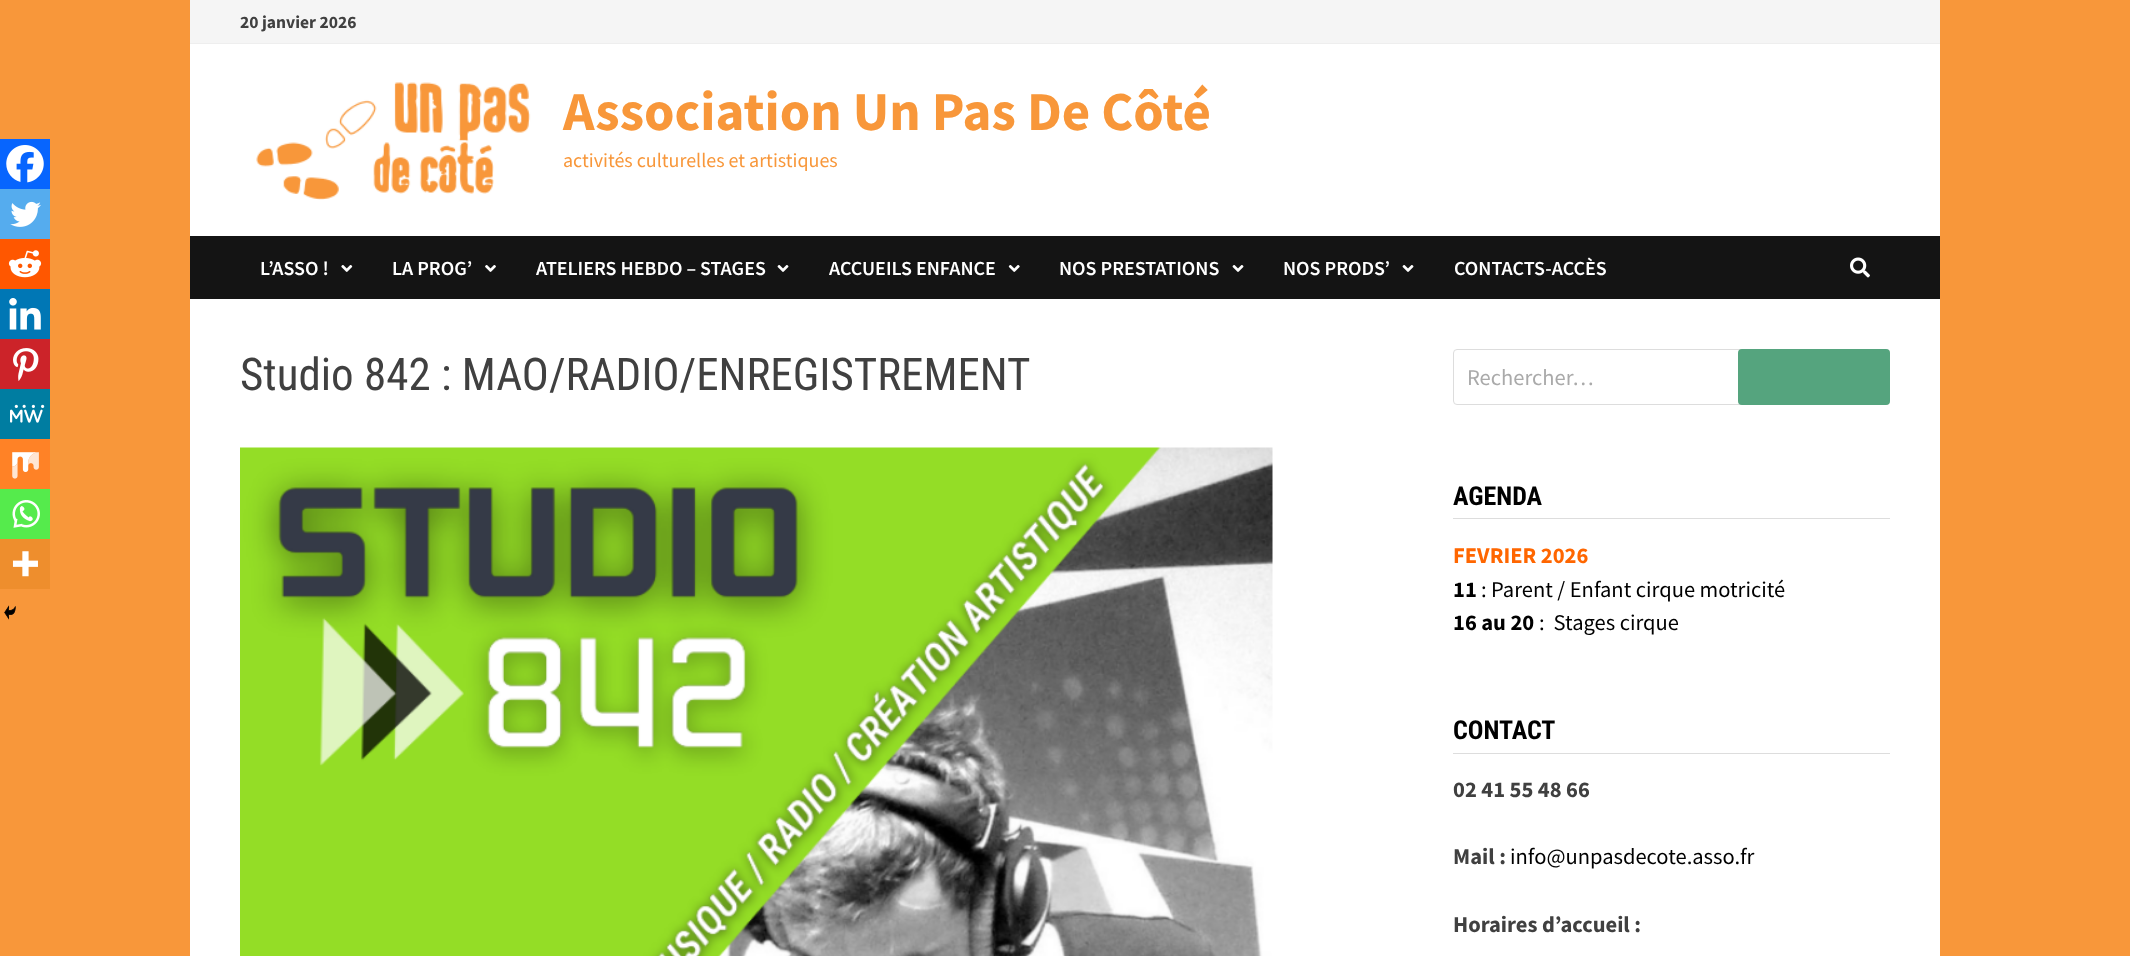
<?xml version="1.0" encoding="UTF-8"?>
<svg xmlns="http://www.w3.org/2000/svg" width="2130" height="956">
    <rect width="100%" height="100%" fill="#F8973A"/>
    <rect x="190" y="44" width="1750" height="912" fill="#FFFFFF"/>
    <rect x="190" y="0" width="1750" height="43" fill="#F5F5F5"/>
    <rect x="190" y="43" width="1750" height="1" fill="#EEEEEE"/>
    <text x="240" y="28" font-family="Source Sans Pro" font-size="17.5" font-weight="700" fill="#404040">20 janvier 2026</text>
    <image x="256" y="82" width="275" height="118" href="img_01.png"/>
    <text x="563" y="130" font-family="Source Sans Pro" font-size="55" font-weight="700" fill="#F8973A">Association Un Pas De Côté</text>
    <text x="563" y="167" font-family="Source Sans Pro" font-size="20" fill="#F8973A">activités culturelles et artistiques</text>
    <rect x="190" y="236" width="1750" height="63" fill="#141414"/>
    <text x="260" y="275" font-family="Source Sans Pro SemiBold" font-size="20" font-weight="600" fill="#FFFFFF">L’ASSO !</text>
    <image x="341" y="265" width="12" height="7" href="img_02.png"/>
    <text x="392" y="275" font-family="Source Sans Pro SemiBold" font-size="20" font-weight="600" fill="#FFFFFF">LA PROG’</text>
    <image x="485" y="265" width="11" height="7" href="img_03.png"/>
    <text x="536" y="275" font-family="Source Sans Pro SemiBold" font-size="20" font-weight="600" fill="#FFFFFF">ATELIERS HEBDO – STAGES</text>
    <image x="777" y="265" width="12" height="7" href="img_04.png"/>
    <text x="829" y="275" font-family="Source Sans Pro SemiBold" font-size="20" font-weight="600" fill="#FFFFFF">ACCUEILS ENFANCE</text>
    <image x="1008" y="265" width="12" height="7" href="img_05.png"/>
    <text x="1059" y="275" font-family="Source Sans Pro SemiBold" font-size="20" font-weight="600" fill="#FFFFFF">NOS PRESTATIONS</text>
    <image x="1232" y="265" width="12" height="7" href="img_04.png"/>
    <text x="1283" y="275" font-family="Source Sans Pro SemiBold" font-size="20" font-weight="600" fill="#FFFFFF">NOS PRODS’</text>
    <image x="1402" y="265" width="12" height="7" href="img_04.png"/>
    <text x="1454" y="275" font-family="Source Sans Pro SemiBold" font-size="20" font-weight="600" fill="#FFFFFF">CONTACTS-ACCÈS</text>
    <image x="1850" y="257" width="20" height="21" href="img_06.png"/>
    <rect x="0" y="139" width="50" height="50" fill="#0765FE"/>
    <image x="6" y="145" width="38" height="38" href="img_07.png"/>
    <rect x="0" y="189" width="50" height="50" fill="#55ACEE"/>
    <image x="10" y="201" width="31" height="26" href="img_08.png"/>
    <rect x="0" y="239" width="50" height="50" fill="#FF5700"/>
    <image x="8" y="250" width="34" height="28" href="img_09.png"/>
    <rect x="0" y="289" width="50" height="50" fill="#0077B5"/>
    <image x="9" y="298" width="32" height="32" href="img_10.png"/>
    <rect x="0" y="339" width="50" height="50" fill="#CC2329"/>
    <image x="13" y="348" width="26" height="33" href="img_11.png"/>
    <rect x="0" y="389" width="50" height="50" fill="#007DA1"/>
    <image x="10" y="404" width="35" height="19" href="img_12.png"/>
    <rect x="0" y="439" width="50" height="50" fill="#FF8226"/>
    <image x="12" y="452" width="27" height="27" href="img_13.png"/>
    <rect x="0" y="489" width="50" height="50" fill="#55EB4C"/>
    <image x="12" y="500" width="28" height="28" href="img_14.png"/>
    <rect x="0" y="539" width="50" height="50" fill="#EE8E2D"/>
    <image x="12" y="551" width="26" height="26" href="img_15.png"/>
    <image x="4" y="605" width="12" height="15" href="img_16.png"/>
    <text x="240" y="390" font-family="Roboto Condensed" font-size="45" fill="#404040">Studio 842 : MAO/RADIO/ENREGISTREMENT</text>
    <image x="240" y="447" width="1033" height="509" href="img_17.png"/>
    <rect x="1453.5" y="349.5" width="436" height="55" rx="3.5" fill="none" stroke="#DDDDDD"/>
    <text x="1467" y="385" font-family="Source Sans Pro" font-size="22.5" fill="#AAAAAA">Rechercher…</text>
    <rect x="1738" y="349" width="152" height="56" rx="4" fill="#55A47E"/>
    <rect x="1453" y="518" width="437" height="1" fill="#DDDDDD"/>
    <text x="1453" y="505" font-family="Roboto Condensed" font-size="26" font-weight="700" fill="#000000">AGENDA</text>
    <text x="1453" y="563" font-family="Source Sans Pro" font-size="22.5" font-weight="700" fill="#FF6600">FEVRIER 2026</text>
    <text x="1453" y="597" font-family="Source Sans Pro" font-size="22.5" font-weight="700" fill="#000000">11</text>
    <text x="1481" y="597" font-family="Source Sans Pro" font-size="22.5" fill="#000000">: Parent / Enfant cirque motricité</text>
    <text x="1453" y="630" font-family="Source Sans Pro" font-size="22.5" font-weight="700" fill="#000000">16 au 20</text>
    <text x="1539" y="630" font-family="Source Sans Pro" font-size="22.5" fill="#000000" xml:space="preserve">:  Stages cirque</text>
    <rect x="1453" y="753" width="437" height="1" fill="#DDDDDD"/>
    <text x="1453" y="739" font-family="Roboto Condensed" font-size="26" font-weight="700" fill="#000000">CONTACT</text>
    <text x="1453" y="797" font-family="Source Sans Pro" font-size="22.5" font-weight="700" fill="#404040">02 41 55 48 66</text>
    <text x="1453" y="864" font-family="Source Sans Pro" font-size="22.5" font-weight="700" fill="#404040">Mail :</text>
    <text x="1510" y="864" font-family="Source Sans Pro" font-size="22.5" fill="#000000">info@unpasdecote.asso.fr</text>
    <text x="1453" y="932" font-family="Source Sans Pro" font-size="22.5" font-weight="700" fill="#404040">Horaires d’accueil :</text>
</svg>
